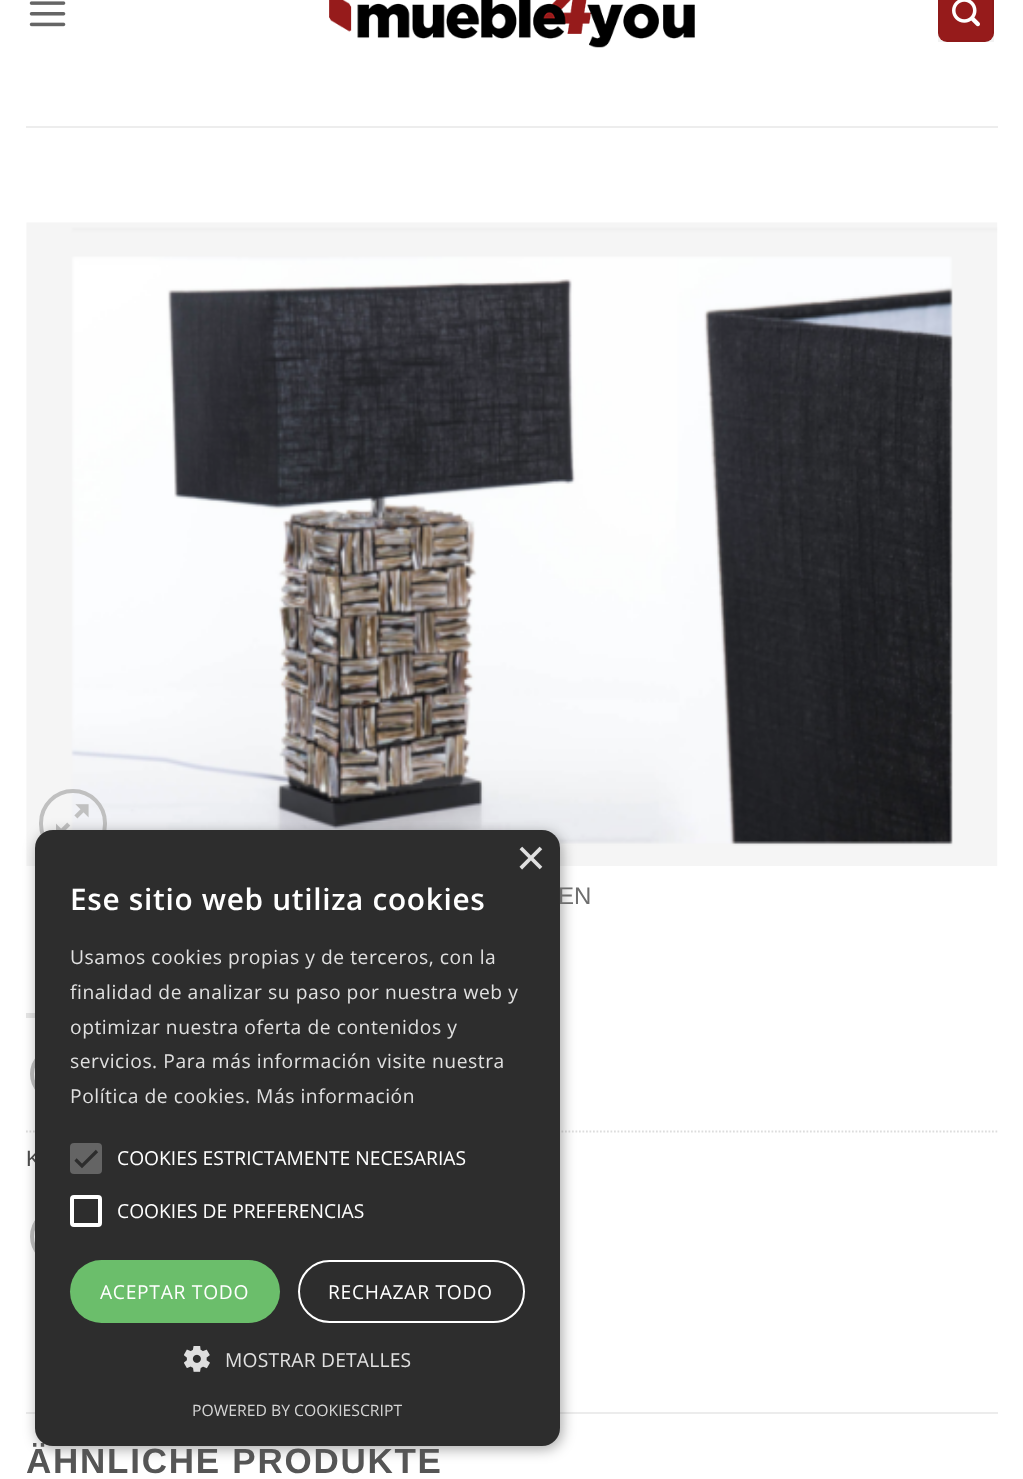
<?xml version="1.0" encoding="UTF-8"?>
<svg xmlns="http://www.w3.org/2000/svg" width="1023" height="1479">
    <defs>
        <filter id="blur1" x="-50%" y="-200%" width="200%" height="500%"><feGaussianBlur stdDeviation="7"/></filter>
    </defs>
    <rect width="100%" height="100%" fill="#FFFFFF"/>
    <image x="26" y="222" width="972" height="644" href="img_05.png"/>
    <rect x="41" y="791" width="64" height="65" rx="32" fill="none" stroke="#C0C0C0" stroke-width="4"/>
    <image x="56" y="804" width="33" height="26" href="img_06.png"/>
    <rect x="26" y="1013" width="9" height="5" fill="#E6E6E6"/>
    <rect x="32" y="1049" width="52" height="50" rx="25" fill="none" stroke="#C0C0C0" stroke-width="4"/>
    <path d="M 26 1131.5 H 997.5" fill="none" stroke="#DDDDDD" stroke-width="1.8" stroke-dasharray="1.75 1.75"/>
    <rect x="32" y="1210" width="54" height="53" rx="26.5" fill="none" stroke="#C0C0C0" stroke-width="4"/>
    <rect x="26" y="1412" width="972" height="2" fill="#ECECEC"/>
    <rect x="37" y="833" width="525" height="616" rx="18" fill="#000000" fill-opacity="0.35" filter="url(#blur1)"/>
    <text x="26" y="1166" font-family="Liberation Sans" font-size="22" fill="#4A4A4A">K</text>
    <text x="26" y="1473" font-family="Liberation Sans" font-size="35" font-weight="700" letter-spacing="1.75" fill="#555555">ÄHNLICHE PRODUKTE</text>
    <rect x="35" y="830" width="525" height="616" rx="18" fill="#2D2D2D"/>
    <text x="516" y="875" font-family="Liberation Sans" font-size="51" fill="#E0E0E0">×</text>
    <text x="70" y="910" font-family="Open Sans" font-size="29.75" font-weight="600" letter-spacing="0.7" fill="#FFFFFF">Ese sitio web utiliza cookies</text>
    <text font-family="Open Sans" font-size="19.25" letter-spacing="0.55" fill="#E0E0E0">
        <tspan x="70" y="964">Usamos cookies propias y de terceros, con la</tspan>
        <tspan x="70" y="999">finalidad de analizar su paso por nuestra web y</tspan>
        <tspan x="70" y="1034">optimizar nuestra oferta de contenidos y</tspan>
        <tspan x="70" y="1068">servicios. Para más información visite nuestra</tspan>
        <tspan x="70" y="1103">Política de cookies. Más información</tspan>
    </text>
    <rect x="70" y="1143" width="32" height="31" rx="4" fill="#646464"/>
    <path d="M 75.5 1159.5 L 82 1166 L 97 1151" fill="none" stroke="#2D2D2D" stroke-width="3.2"/>
    <text x="117" y="1165" font-family="Open Sans" font-size="19.25" fill="#FFFFFF">COOKIES ESTRICTAMENTE NECESARIAS</text>
    <rect x="72" y="1197" width="28" height="28" rx="2" fill="none" stroke="#FFFFFF" stroke-width="4"/>
    <text x="117" y="1218" font-family="Open Sans" font-size="19.25" fill="#FFFFFF">COOKIES DE PREFERENCIAS</text>
    <rect x="70" y="1260" width="210" height="63" rx="31.5" fill="#6BBE6B"/>
    <text x="100" y="1299" font-family="Open Sans" font-size="19.25" letter-spacing="0.7" fill="#FFFFFF">ACEPTAR TODO</text>
    <rect x="299" y="1261" width="225" height="61" rx="30.5" fill="none" stroke="#FFFFFF" stroke-width="2"/>
    <text x="328" y="1299" font-family="Open Sans" font-size="19.25" letter-spacing="0.7" fill="#FFFFFF">RECHAZAR TODO</text>
    <image x="184" y="1346" width="26" height="26" href="img_01.png"/>
    <text x="225" y="1367" font-family="Open Sans" font-size="19.25" letter-spacing="0.2" fill="#E0E0E0">MOSTRAR DETALLES</text>
    <text x="192" y="1416" font-family="Open Sans" font-size="15.75" fill="#D5D5D5">POWERED BY COOKIESCRIPT</text>
    <image x="29" y="1" width="37" height="26" href="img_02.png"/>
    <image x="329" y="0" width="366" height="48" href="img_03.png"/>
    <rect x="938" y="-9" width="56" height="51" rx="9" fill="#961B1B"/>
    <rect x="939" y="-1" width="54" height="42" fill="none" stroke="#000000" stroke-opacity="0.05" stroke-width="2"/>
    <image x="952" y="0" width="28" height="27" href="img_04.png"/>
    <rect x="26" y="126" width="972" height="2" fill="#EDEDED"/>
    <text x="558" y="904" font-family="Liberation Sans" font-size="24" fill="#6E6E6E">EN</text>
</svg>
